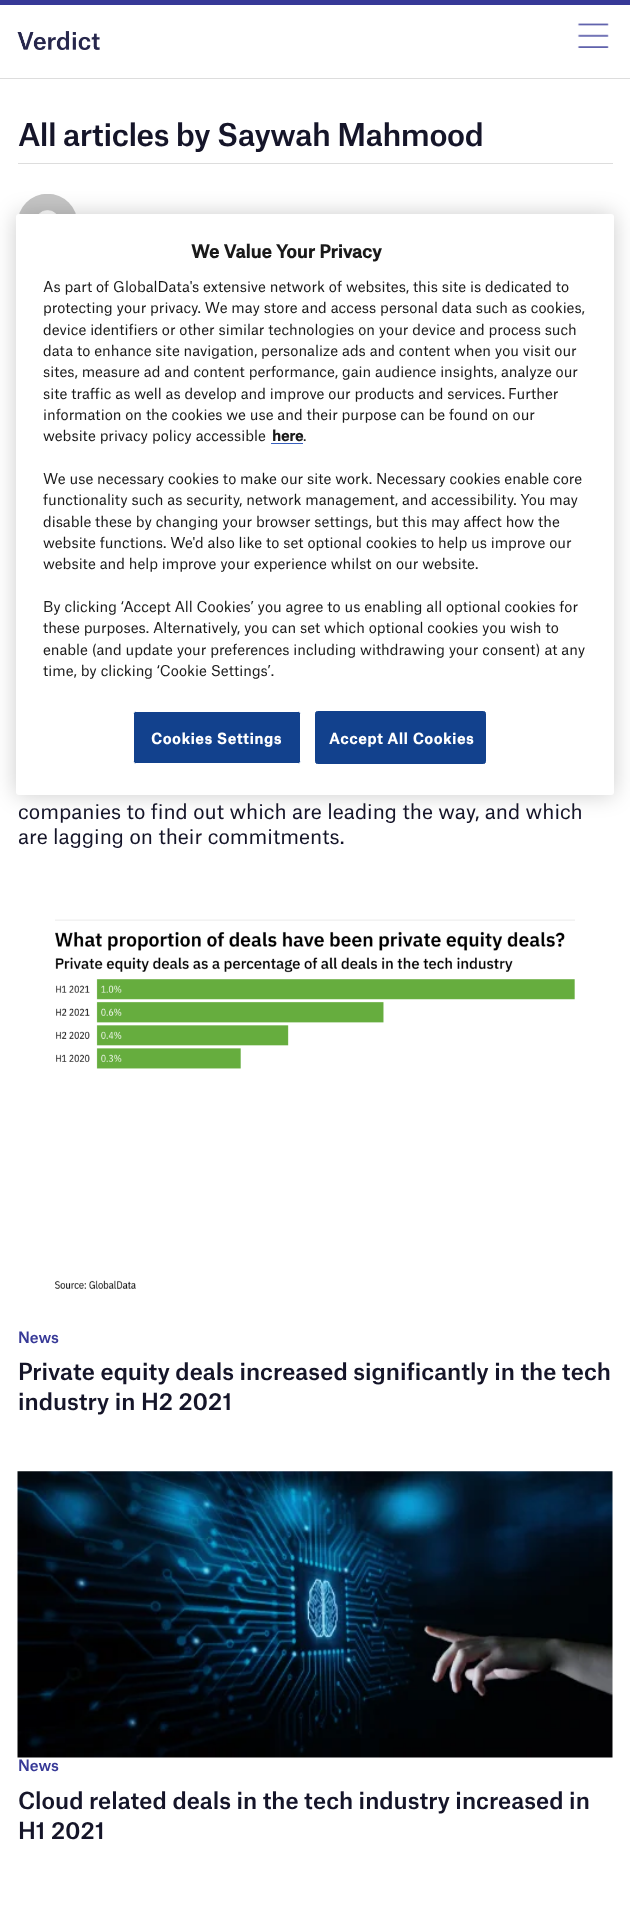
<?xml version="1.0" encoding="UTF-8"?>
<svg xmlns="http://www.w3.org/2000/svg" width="630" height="1929">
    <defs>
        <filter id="blur1" x="-50%" y="-200%" width="200%" height="500%"><feGaussianBlur stdDeviation="11"/></filter>
    </defs>
    <rect width="100%" height="100%" fill="#FFFFFF"/>
    <rect x="0" y="0" width="630" height="5" fill="#373997"/>
    <rect x="0" y="78" width="630" height="1" fill="#DDDDDD"/>
    <image x="17" y="31" width="83" height="19" href="img_01.png"/>
    <image x="577" y="23" width="32" height="25" href="img_02.png"/>
    <rect x="18" y="163" width="595" height="1" fill="#DDDDDD"/>
    <text x="18" y="146" font-family="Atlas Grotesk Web" font-size="30" font-weight="500" letter-spacing="-0.45" fill="#151529">All articles by Saywah Mahmood</text>
    <image x="19" y="194" width="57" height="20" href="img_03.png"/>
    <text font-family="Atlas Grotesk Web" font-size="20" fill="#151529">
        <tspan x="18" y="819">companies to find out which are leading the way, and which</tspan>
        <tspan x="18" y="844">are lagging on their commitments.</tspan>
    </text>
    <image x="55" y="919" width="520" height="370" href="img_04.png"/>
    <text x="18" y="1343" font-family="Atlas Grotesk Web" font-size="15" font-weight="500" fill="#373997">News</text>
    <text font-family="Atlas Grotesk Web" font-size="22.5" font-weight="500" fill="#151529">
        <tspan x="18" y="1380">Private equity deals increased significantly in the tech</tspan>
        <tspan x="18" y="1410">industry in H2 2021</tspan>
    </text>
    <image x="17" y="1471" width="596" height="287" href="img_05.png"/>
    <text x="18" y="1771" font-family="Atlas Grotesk Web" font-size="15" font-weight="500" fill="#373997">News</text>
    <text font-family="Atlas Grotesk Web" font-size="22.5" font-weight="500" fill="#151529">
        <tspan x="18" y="1809">Cloud related deals in the tech industry increased in</tspan>
        <tspan x="18" y="1839">H1 2021</tspan>
    </text>
    <rect x="16" y="214" width="598" height="581" rx="3" fill="#000000" fill-opacity="0.2" filter="url(#blur1)"/>
    <rect x="16" y="214" width="598" height="581" rx="3" fill="#FFFFFF"/>
    <text x="191" y="258" font-family="Atlas Grotesk Web" font-size="17.5" font-weight="700" fill="#1A1A1A">We Value Your Privacy</text>
    <text font-family="Atlas Grotesk Web" font-size="14.25" fill="#1A1A1A">
        <tspan x="43" y="292">As part of GlobalData's extensive network of websites, this site is dedicated to</tspan>
        <tspan x="43" y="313">protecting your privacy. We may store and access personal data such as cookies,</tspan>
        <tspan x="43" y="335">device identifiers or other similar technologies on your device and process such</tspan>
        <tspan x="43" y="356">data to enhance site navigation, personalize ads and content when you visit our</tspan>
        <tspan x="43" y="377">sites, measure ad and content performance, gain audience insights, analyze our</tspan>
        <tspan x="43" y="399">site traffic as well as develop and improve our products and services.</tspan>
    </text>
    <text x="508" y="399" font-family="Atlas Grotesk Web" font-size="14.25" fill="#1A1A1A">Further</text>
    <text font-family="Atlas Grotesk Web" font-size="14.25" fill="#1A1A1A">
        <tspan x="43" y="420">information on the cookies we use and their purpose can be found on our</tspan>
        <tspan x="43" y="441">website privacy policy accessible</tspan>
    </text>
    <text x="272" y="441" font-family="Atlas Grotesk Web" font-size="14.25" font-weight="700" fill="#1A1A1A">here</text>
    <rect x="271" y="443" width="32" height="1" fill="#3860BE"/>
    <text x="303" y="441" font-family="Atlas Grotesk Web" font-size="14.25" fill="#1A1A1A">.</text>
    <text font-family="Atlas Grotesk Web" font-size="14.25" fill="#1A1A1A">
        <tspan x="43" y="484">We use necessary cookies to make our site work. Necessary cookies enable core</tspan>
        <tspan x="43" y="505">functionality such as security, network management, and accessibility. You may</tspan>
        <tspan x="43" y="527">disable these by changing your browser settings, but this may affect how the</tspan>
        <tspan x="43" y="548">website functions. We'd also like to set optional cookies to help us improve our</tspan>
        <tspan x="43" y="569">website and help improve your experience whilst on our website.</tspan>
    </text>
    <text font-family="Atlas Grotesk Web" font-size="14.25" fill="#1A1A1A">
        <tspan x="43" y="612">By clicking ‘Accept All Cookies’ you agree to us enabling all optional cookies for</tspan>
        <tspan x="43" y="633">these purposes. Alternatively, you can set which optional cookies you wish to</tspan>
        <tspan x="43" y="655">enable (and update your preferences including withdrawing your consent) at any</tspan>
        <tspan x="43" y="676">time, by clicking ‘Cookie Settings’.</tspan>
    </text>
    <rect x="133.5" y="711.5" width="167" height="52" rx="2" fill="#12418D" stroke="#FFFFFF"/>
    <text x="151" y="744" font-family="Atlas Grotesk Web" font-size="14.25" font-weight="700" letter-spacing="0.75" fill="#FFFFFF">Cookies Settings</text>
    <rect x="315.5" y="711.5" width="170" height="52" rx="2" fill="#12418D" stroke="#12418D"/>
    <text x="329" y="744" font-family="Atlas Grotesk Web" font-size="14.25" font-weight="700" letter-spacing="0.75" fill="#FFFFFF">Accept All Cookies</text>
</svg>
